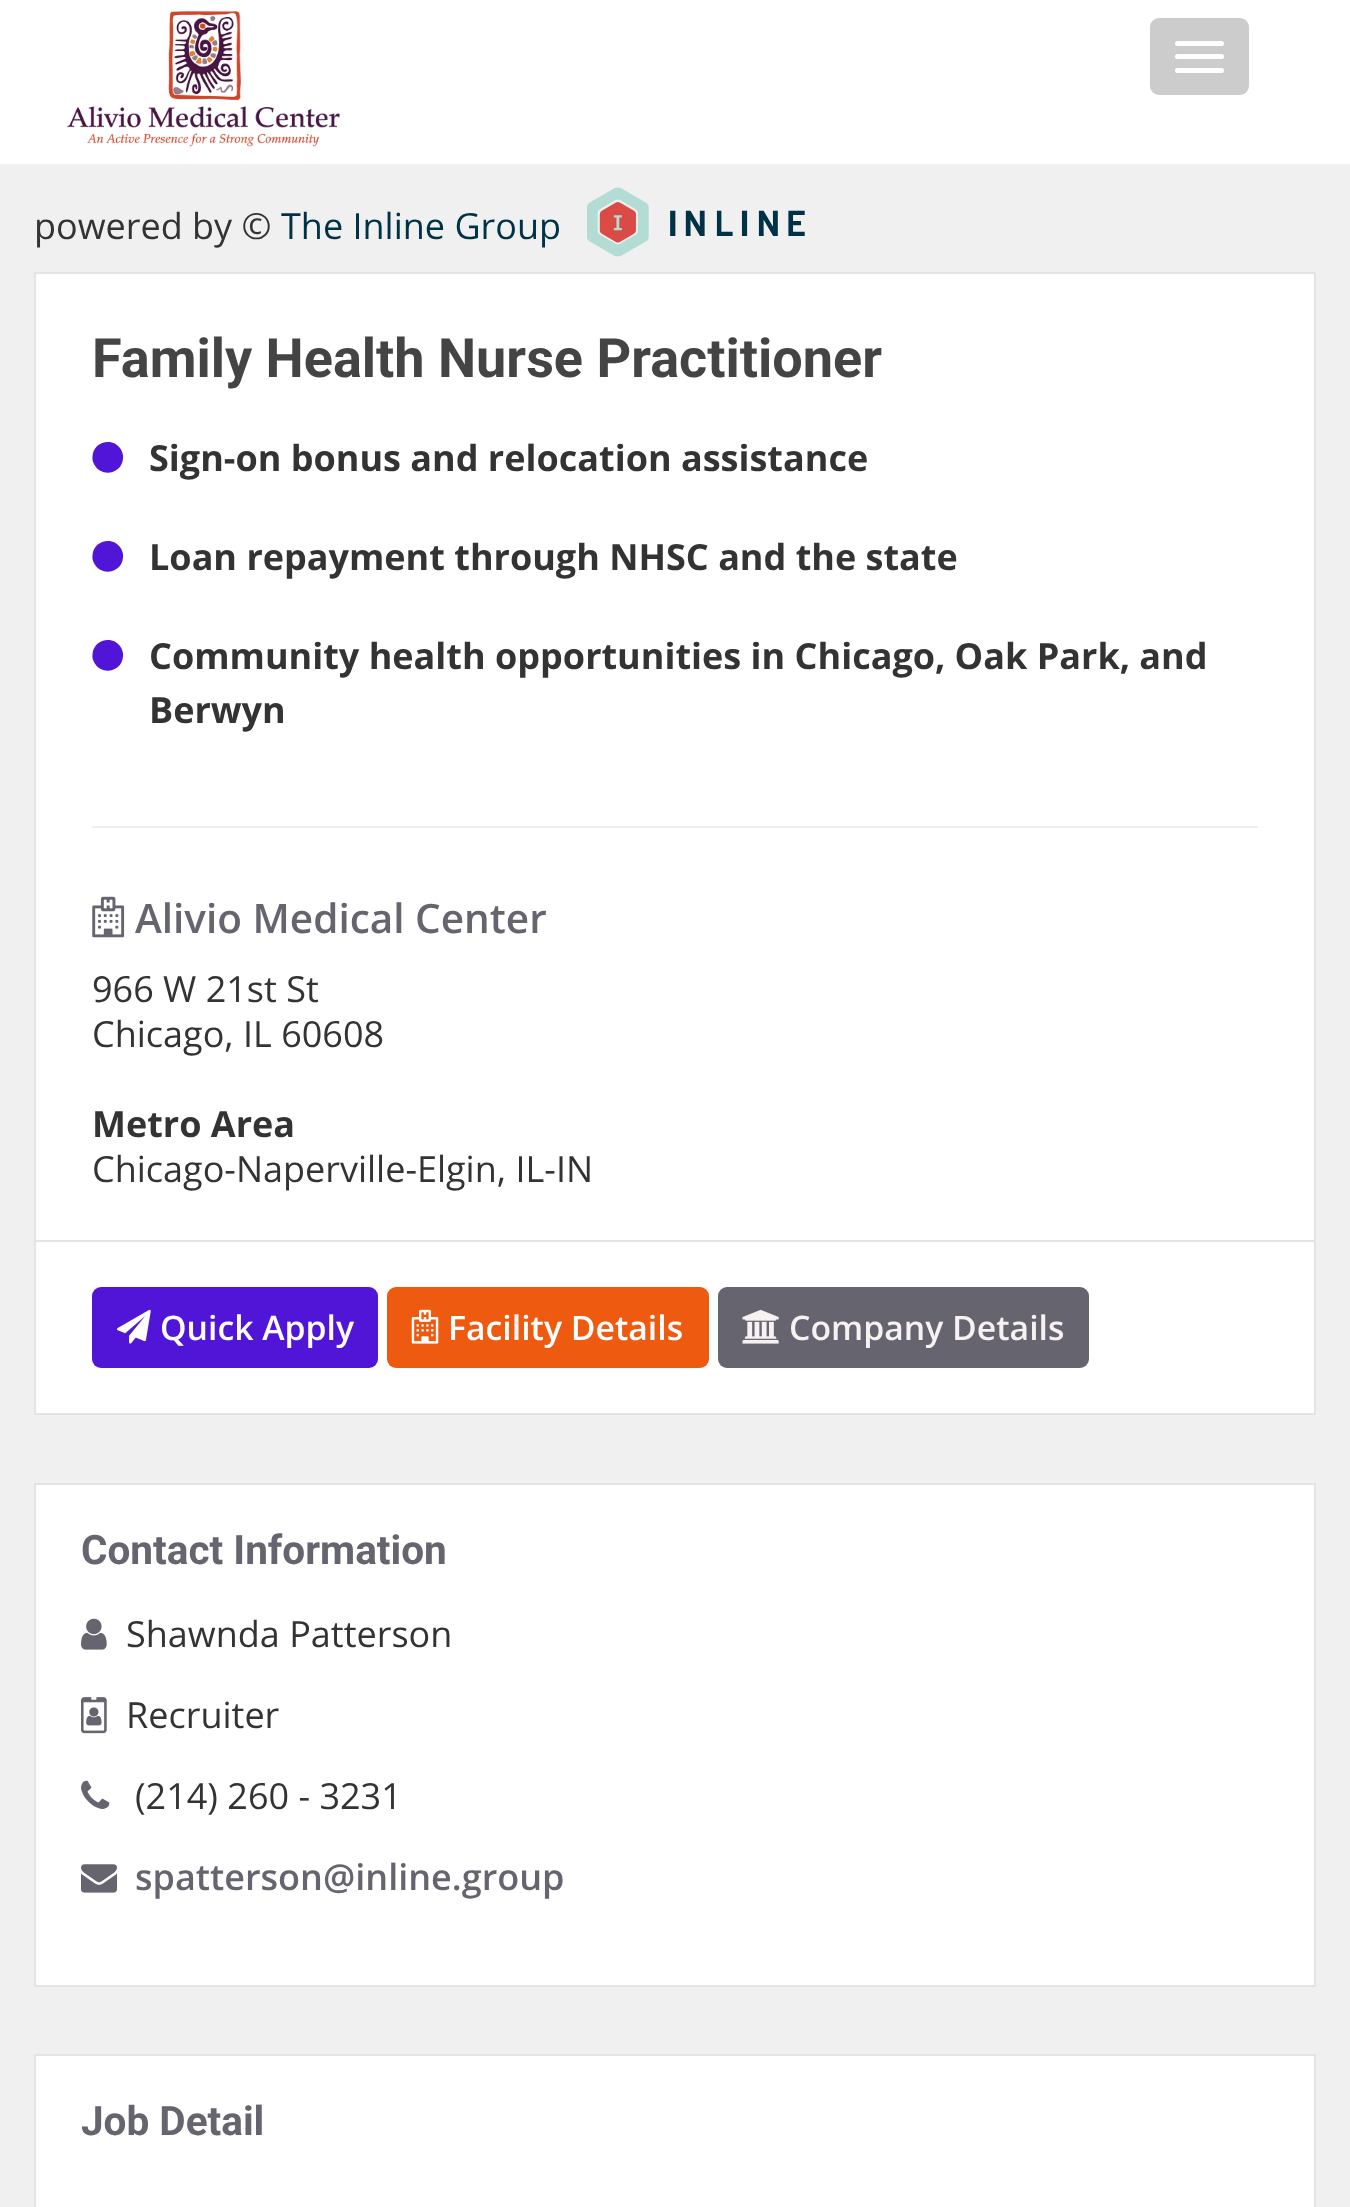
<?xml version="1.0" encoding="UTF-8"?>
<svg xmlns="http://www.w3.org/2000/svg" width="1350" height="2207">
    <rect width="100%" height="100%" fill="#FFFFFF"/>
    <image x="67" y="11" width="273" height="136" href="img_01.png"/>
    <rect x="1150" y="18" width="99" height="77" rx="9" fill="#CCCCCC"/>
    <rect x="1175" y="41" width="49" height="5" rx="2.5" fill="#FFFFFF"/>
    <rect x="1175" y="54" width="49" height="5" rx="2.5" fill="#FFFFFF"/>
    <rect x="1175" y="68" width="49" height="5" rx="2.5" fill="#FFFFFF"/>
    <rect x="0" y="164" width="1350" height="2043" fill="#F0F0F0"/>
    <text x="34" y="239" font-family="Open Sans" font-size="36" fill="#333333">powered by ©</text>
    <text x="281" y="239" font-family="Open Sans" font-size="36" fill="#003247">The Inline Group</text>
    <image x="587" y="187" width="218" height="70" href="img_02.png"/>
    <rect x="35" y="273" width="1280" height="1141" fill="#FFFFFF" stroke="#E4E4E4" stroke-width="2"/>
    <rect x="36" y="1240" width="1278" height="2" fill="#E4E4E4"/>
    <text x="92" y="377" font-family="Roboto" font-size="54" font-weight="700" fill="#444444">Family Health Nurse Practitioner</text>
    <path d="M 121 449.5 C 122.5 452.5 123.5 455.5 123 458.5 C 122 473.5 102 478 94.5 465 C 93 462.5 92 459.5 92.5 456.5 C 93 441 113.5 436.5 121 449.5 Z" fill="#5115D8"/>
    <text x="149" y="471" font-family="Open Sans" font-size="36" font-weight="700" fill="#333333">Sign-on bonus and relocation assistance</text>
    <path d="M 121 548.5 C 122.5 551.5 123.5 554.5 123 557.5 C 122 572.5 102 577 94.5 564 C 93 561.5 92 558.5 92.5 555.5 C 93 540 113.5 535.5 121 548.5 Z" fill="#5115D8"/>
    <text x="149" y="570" font-family="Open Sans" font-size="36" font-weight="700" fill="#333333">Loan repayment through NHSC and the state</text>
    <path d="M 121 647.5 C 122.5 650.5 123.5 653.5 123 656.5 C 122 671.5 102 676 94.5 663 C 93 660.5 92 657.5 92.5 654.5 C 93 639 113.5 634.5 121 647.5 Z" fill="#5115D8"/>
    <text font-family="Open Sans" font-size="36" font-weight="700" fill="#333333">
        <tspan x="149" y="669">Community health opportunities in Chicago, Oak Park, and</tspan>
        <tspan x="149" y="723">Berwyn</tspan>
    </text>
    <rect x="92" y="826" width="1166" height="2" fill="#EEEEEE"/>
    <image x="92" y="896" width="33" height="42" href="img_03.png"/>
    <text x="135" y="933" font-family="Open Sans" font-size="40.5" font-weight="600" fill="#65646F">Alivio Medical Center</text>
    <text font-family="Open Sans" font-size="36" fill="#333333">
        <tspan x="92" y="1002">966 W 21st St</tspan>
        <tspan x="92" y="1047">Chicago, IL 60608</tspan>
    </text>
    <text x="92" y="1137" font-family="Open Sans" font-size="36" font-weight="700" fill="#333333">Metro Area</text>
    <text x="92" y="1182" font-family="Open Sans" font-size="36" fill="#333333">Chicago-Naperville-Elgin, IL-IN</text>
    <rect x="92" y="1287" width="286" height="81" rx="9" fill="#5115D8"/>
    <image x="117" y="1309" width="34" height="35" href="img_04.png"/>
    <text x="160" y="1340" font-family="Open Sans" font-size="33.75" font-weight="600" fill="#FFFFFF">Quick Apply</text>
    <rect x="387" y="1287" width="322" height="81" rx="9" fill="#EF5A11"/>
    <image x="411" y="1309" width="28" height="35" href="img_05.png"/>
    <text x="448" y="1340" font-family="Open Sans" font-size="33.75" font-weight="600" fill="#FFFFFF">Facility Details</text>
    <rect x="718" y="1287" width="371" height="81" rx="9" fill="#65646F"/>
    <image x="742" y="1309" width="37" height="35" href="img_06.png"/>
    <text x="789" y="1340" font-family="Open Sans" font-size="33.75" font-weight="600" fill="#F7F1F1">Company Details</text>
    <rect x="35" y="1484" width="1280" height="502" fill="#FFFFFF" stroke="#E4E4E4" stroke-width="2"/>
    <text x="81" y="1564" font-family="Roboto" font-size="40.5" font-weight="700" fill="#65646F">Contact Information</text>
    <image x="81" y="1618" width="26" height="32" href="img_07.png"/>
    <text x="126" y="1647" font-family="Open Sans" font-size="36" fill="#333333">Shawnda Patterson</text>
    <image x="81" y="1697" width="26" height="37" href="img_08.png"/>
    <text x="126" y="1728" font-family="Open Sans" font-size="36" fill="#333333">Recruiter</text>
    <image x="81" y="1780" width="29" height="29" href="img_09.png"/>
    <text x="135" y="1809" font-family="Open Sans" font-size="36" fill="#333333">(214) 260 - 3231</text>
    <image x="81" y="1864" width="36" height="29" href="img_10.png"/>
    <text x="135" y="1890" font-family="Open Sans" font-size="36" font-weight="600" fill="#65646F">spatterson@inline.group</text>
    <rect x="35" y="2055" width="1280" height="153" fill="#FFFFFF" stroke="#E4E4E4" stroke-width="2"/>
    <text x="81" y="2135" font-family="Roboto" font-size="40.5" font-weight="700" fill="#65646F">Job Detail</text>
</svg>
